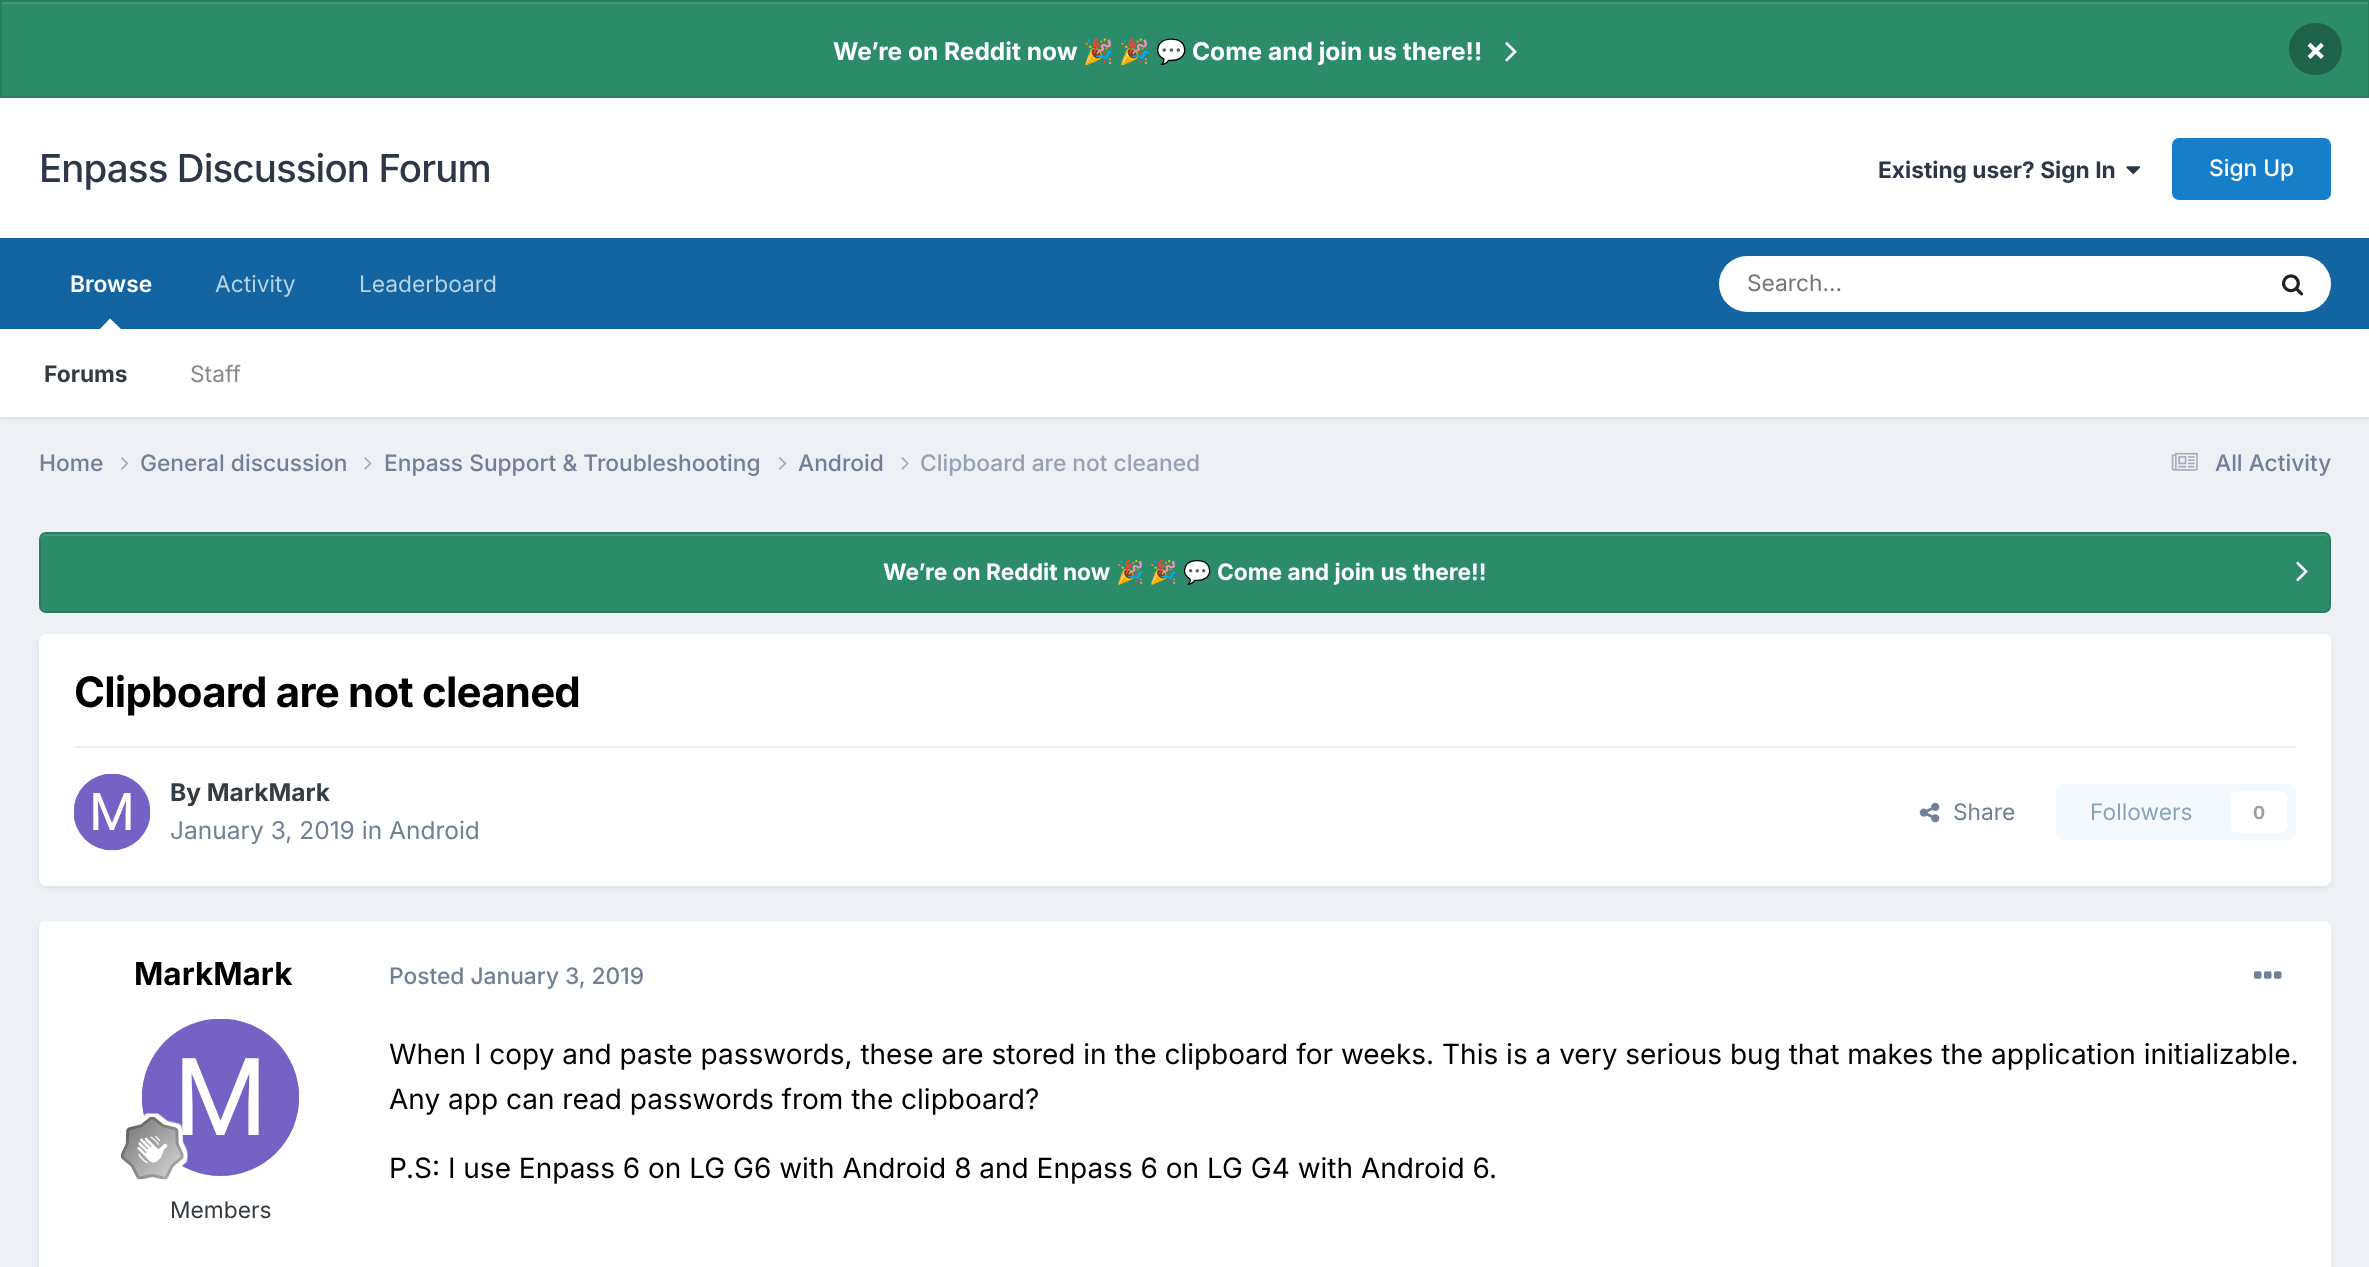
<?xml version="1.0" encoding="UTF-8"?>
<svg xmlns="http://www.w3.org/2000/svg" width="2369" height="1267">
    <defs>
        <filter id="blur1" x="-50%" y="-200%" width="200%" height="500%"><feGaussianBlur stdDeviation="2"/></filter>
        <filter id="blur2" x="-50%" y="-200%" width="200%" height="500%"><feGaussianBlur stdDeviation="3.5"/></filter>
    </defs>
    <rect width="100%" height="100%" fill="#EDF0F4"/>
    <rect x="2" y="4" width="2366" height="92" fill="#2C8C69"/>
    <rect x="2" y="2" width="2366" height="2" fill="#419878"/>
    <rect x="1" y="1" width="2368" height="96" fill="none" stroke="#287E5F" stroke-width="2"/>
    <text x="833" y="60" font-family="Inter" font-size="24.5" font-weight="700" fill="#FFFFFF">We’re on Reddit now</text>
    <text x="1083" y="60" font-family="Noto Color Emoji" font-size="24.5" font-weight="700" fill="#FFFFFF">🎉</text>
    <text x="1119" y="60" font-family="Noto Color Emoji" font-size="24.5" font-weight="700" fill="#FFFFFF">🎉</text>
    <text x="1156" y="60" font-family="Noto Color Emoji" font-size="24.5" font-weight="700" fill="#FFFFFF">💬</text>
    <text x="1192" y="60" font-family="Inter" font-size="24.5" font-weight="700" fill="#FFFFFF">Come and join us there!!</text>
    <image x="1505" y="42" width="12" height="20" href="img_01.png"/>
    <rect x="2289" y="23" width="53" height="52" rx="26" fill="#1F624A"/>
    <text x="2305" y="60" font-family="Inter" font-size="31.5" font-weight="700" fill="#FFFFFF">×</text>
    <rect x="0" y="98" width="2369" height="140" fill="#FFFFFF"/>
    <text x="39" y="182" font-family="Inter" font-size="38.5" font-weight="500" letter-spacing="-0.9" fill="#2D3748">Enpass Discussion Forum</text>
    <text x="1878" y="178" font-family="Inter" font-size="22.75" font-weight="700" fill="#2D3748">Existing user? Sign In</text>
    <image x="2126" y="166" width="15" height="9" href="img_02.png"/>
    <rect x="2172" y="138" width="159" height="62" rx="7" fill="#177EC9"/>
    <text x="2209" y="176" font-family="Inter" font-size="22.75" font-weight="500" fill="#FFFFFF">Sign Up</text>
    <rect x="0" y="238" width="2369" height="91" fill="#1265A1"/>
    <text x="70" y="292" font-family="Inter" font-size="22.75" font-weight="600" fill="#FFFFFF">Browse</text>
    <rect x="0" y="331" width="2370" height="87" fill="#000000" fill-opacity="0.1" filter="url(#blur1)"/>
    <path d="M 121 329 H 100 L 110 318.5 Z" fill="#FFFFFF"/>
    <rect x="0" y="329" width="2369" height="88" fill="#FFFFFF"/>
    <text x="44" y="382" font-family="Inter" font-size="22.75" font-weight="700" fill="#353C41">Forums</text>
    <text x="190" y="382" font-family="Inter" font-size="22.75" fill="#868A8D">Staff</text>
    <text x="215" y="292" font-family="Inter" font-size="22.75" fill="#B8D1E3">Activity</text>
    <text x="359" y="292" font-family="Inter" font-size="22.75" fill="#B8D1E3">Leaderboard</text>
    <rect x="1719" y="256" width="612" height="56" rx="28" fill="#FFFFFF"/>
    <text x="1747" y="291" font-family="Inter" font-size="22.75" fill="#757575">Search...</text>
    <image x="2282" y="274" width="22" height="22" href="img_03.png"/>
    <text x="39" y="471" font-family="Inter" font-size="22.75" font-weight="500" fill="#718096">Home</text>
    <image x="121" y="457" width="8" height="13" href="img_04.png"/>
    <text x="140" y="471" font-family="Inter" font-size="22.75" font-weight="500" fill="#718096">General discussion</text>
    <image x="364" y="457" width="8" height="13" href="img_05.png"/>
    <text x="384" y="471" font-family="Inter" font-size="22.75" font-weight="500" fill="#718096">Enpass Support &amp; Troubleshooting</text>
    <image x="779" y="457" width="8" height="13" href="img_04.png"/>
    <text x="798" y="471" font-family="Inter" font-size="22.75" font-weight="500" fill="#718096">Android</text>
    <image x="901" y="457" width="8" height="13" href="img_06.png"/>
    <text x="920" y="471" font-family="Inter" font-size="22.75" font-weight="500" fill="#96A2B2">Clipboard are not cleaned</text>
    <image x="2171" y="452" width="27" height="19" href="img_07.png"/>
    <text x="2215" y="471" font-family="Inter" font-size="22.75" font-weight="500" fill="#718096">All Activity</text>
    <rect x="39" y="532" width="2292" height="81" rx="7" fill="#2C8C69"/>
    <path d="M 46 536 H 2324 C 2327 536 2329 538 2329 541 V 539 C 2329 536 2327 534 2324 534 H 45 C 42 534 40 536 40 539 V 541 C 40 538 43 536 46 536 Z" fill="#419878"/>
    <rect x="40" y="533" width="2290" height="79" rx="6" fill="none" stroke="#000000" stroke-opacity="0.1" stroke-width="2"/>
    <text x="883" y="580" font-family="Inter" font-size="22.75" font-weight="700" fill="#FFFFFF">We’re on Reddit now</text>
    <text x="1116" y="580" font-family="Noto Color Emoji" font-size="22.75" font-weight="700" fill="#FFFFFF">🎉</text>
    <text x="1149" y="580" font-family="Noto Color Emoji" font-size="22.75" font-weight="700" fill="#FFFFFF">🎉</text>
    <text x="1183" y="580" font-family="Noto Color Emoji" font-size="22.75" font-weight="700" fill="#FFFFFF">💬</text>
    <text x="1217" y="580" font-family="Inter" font-size="22.75" font-weight="700" fill="#FFFFFF">Come and join us there!!</text>
    <image x="2296" y="561" width="12" height="21" href="img_08.png"/>
    <rect x="40" y="639" width="2289" height="248" rx="5" fill="#2D3748" fill-opacity="0.1" filter="url(#blur2)"/>
    <rect x="39" y="634" width="2292" height="252" rx="7" fill="#FFFFFF"/>
    <text x="74" y="707" font-family="Inter" font-size="42" font-weight="700" letter-spacing="-0.8" fill="#000000">Clipboard are not cleaned</text>
    <rect x="74" y="746" width="2222" height="2" fill="#EFEFF0"/>
    <image x="74" y="774" width="77" height="77" href="img_09.png"/>
    <text x="170" y="801" font-family="Inter" font-size="24.5" font-weight="700" fill="#353C41">By MarkMark</text>
    <text x="170" y="839" font-family="Inter" font-size="24.5" fill="#718096">January 3, 2019 in Android</text>
    <image x="1919" y="802" width="21" height="21" href="img_10.png"/>
    <text x="1953" y="820" font-family="Inter" font-size="22.75" fill="#718096">Share</text>
    <rect x="2056" y="784" width="240" height="56" rx="7" fill="#F4F9FD"/>
    <text x="2090" y="820" font-family="Inter" font-size="22.75" fill="#87A6BC">Followers</text>
    <rect x="2231" y="791" width="56" height="42" rx="7" fill="#FFFFFF"/>
    <text x="2253" y="819" font-family="Inter" font-size="18" font-weight="700" fill="#9A9EA0">0</text>
    <rect x="40" y="926" width="2289" height="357" rx="5" fill="#2D3748" fill-opacity="0.1" filter="url(#blur2)"/>
    <rect x="39" y="921" width="2292" height="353" rx="7" fill="#FFFFFF"/>
    <text x="134" y="985" font-family="Inter" font-size="31.5" font-weight="700" fill="#000000">MarkMark</text>
    <image x="142" y="1019" width="157" height="157" href="img_11.png"/>
    <image x="121" y="1113" width="67" height="67" href="img_12.png"/>
    <text x="170" y="1218" font-family="Inter" font-size="22.75" fill="#353C41">Members</text>
    <text x="389" y="984" font-family="Inter" font-size="22.75" font-weight="500" fill="#718096">Posted January 3, 2019</text>
    <image x="2254" y="971" width="28" height="8" href="img_13.png"/>
    <text font-family="Inter" font-size="28" fill="#000000">
        <tspan x="389" y="1064">When I copy and paste passwords, these are stored in the clipboard for weeks. This is a very serious bug that makes the application initializable.</tspan>
        <tspan x="389" y="1109">Any app can read passwords from the clipboard?</tspan>
    </text>
    <text x="389" y="1178" font-family="Inter" font-size="28" fill="#000000">P.S: I use Enpass 6 on LG G6 with Android 8 and Enpass 6 on LG G4 with Android 6.</text>
</svg>
